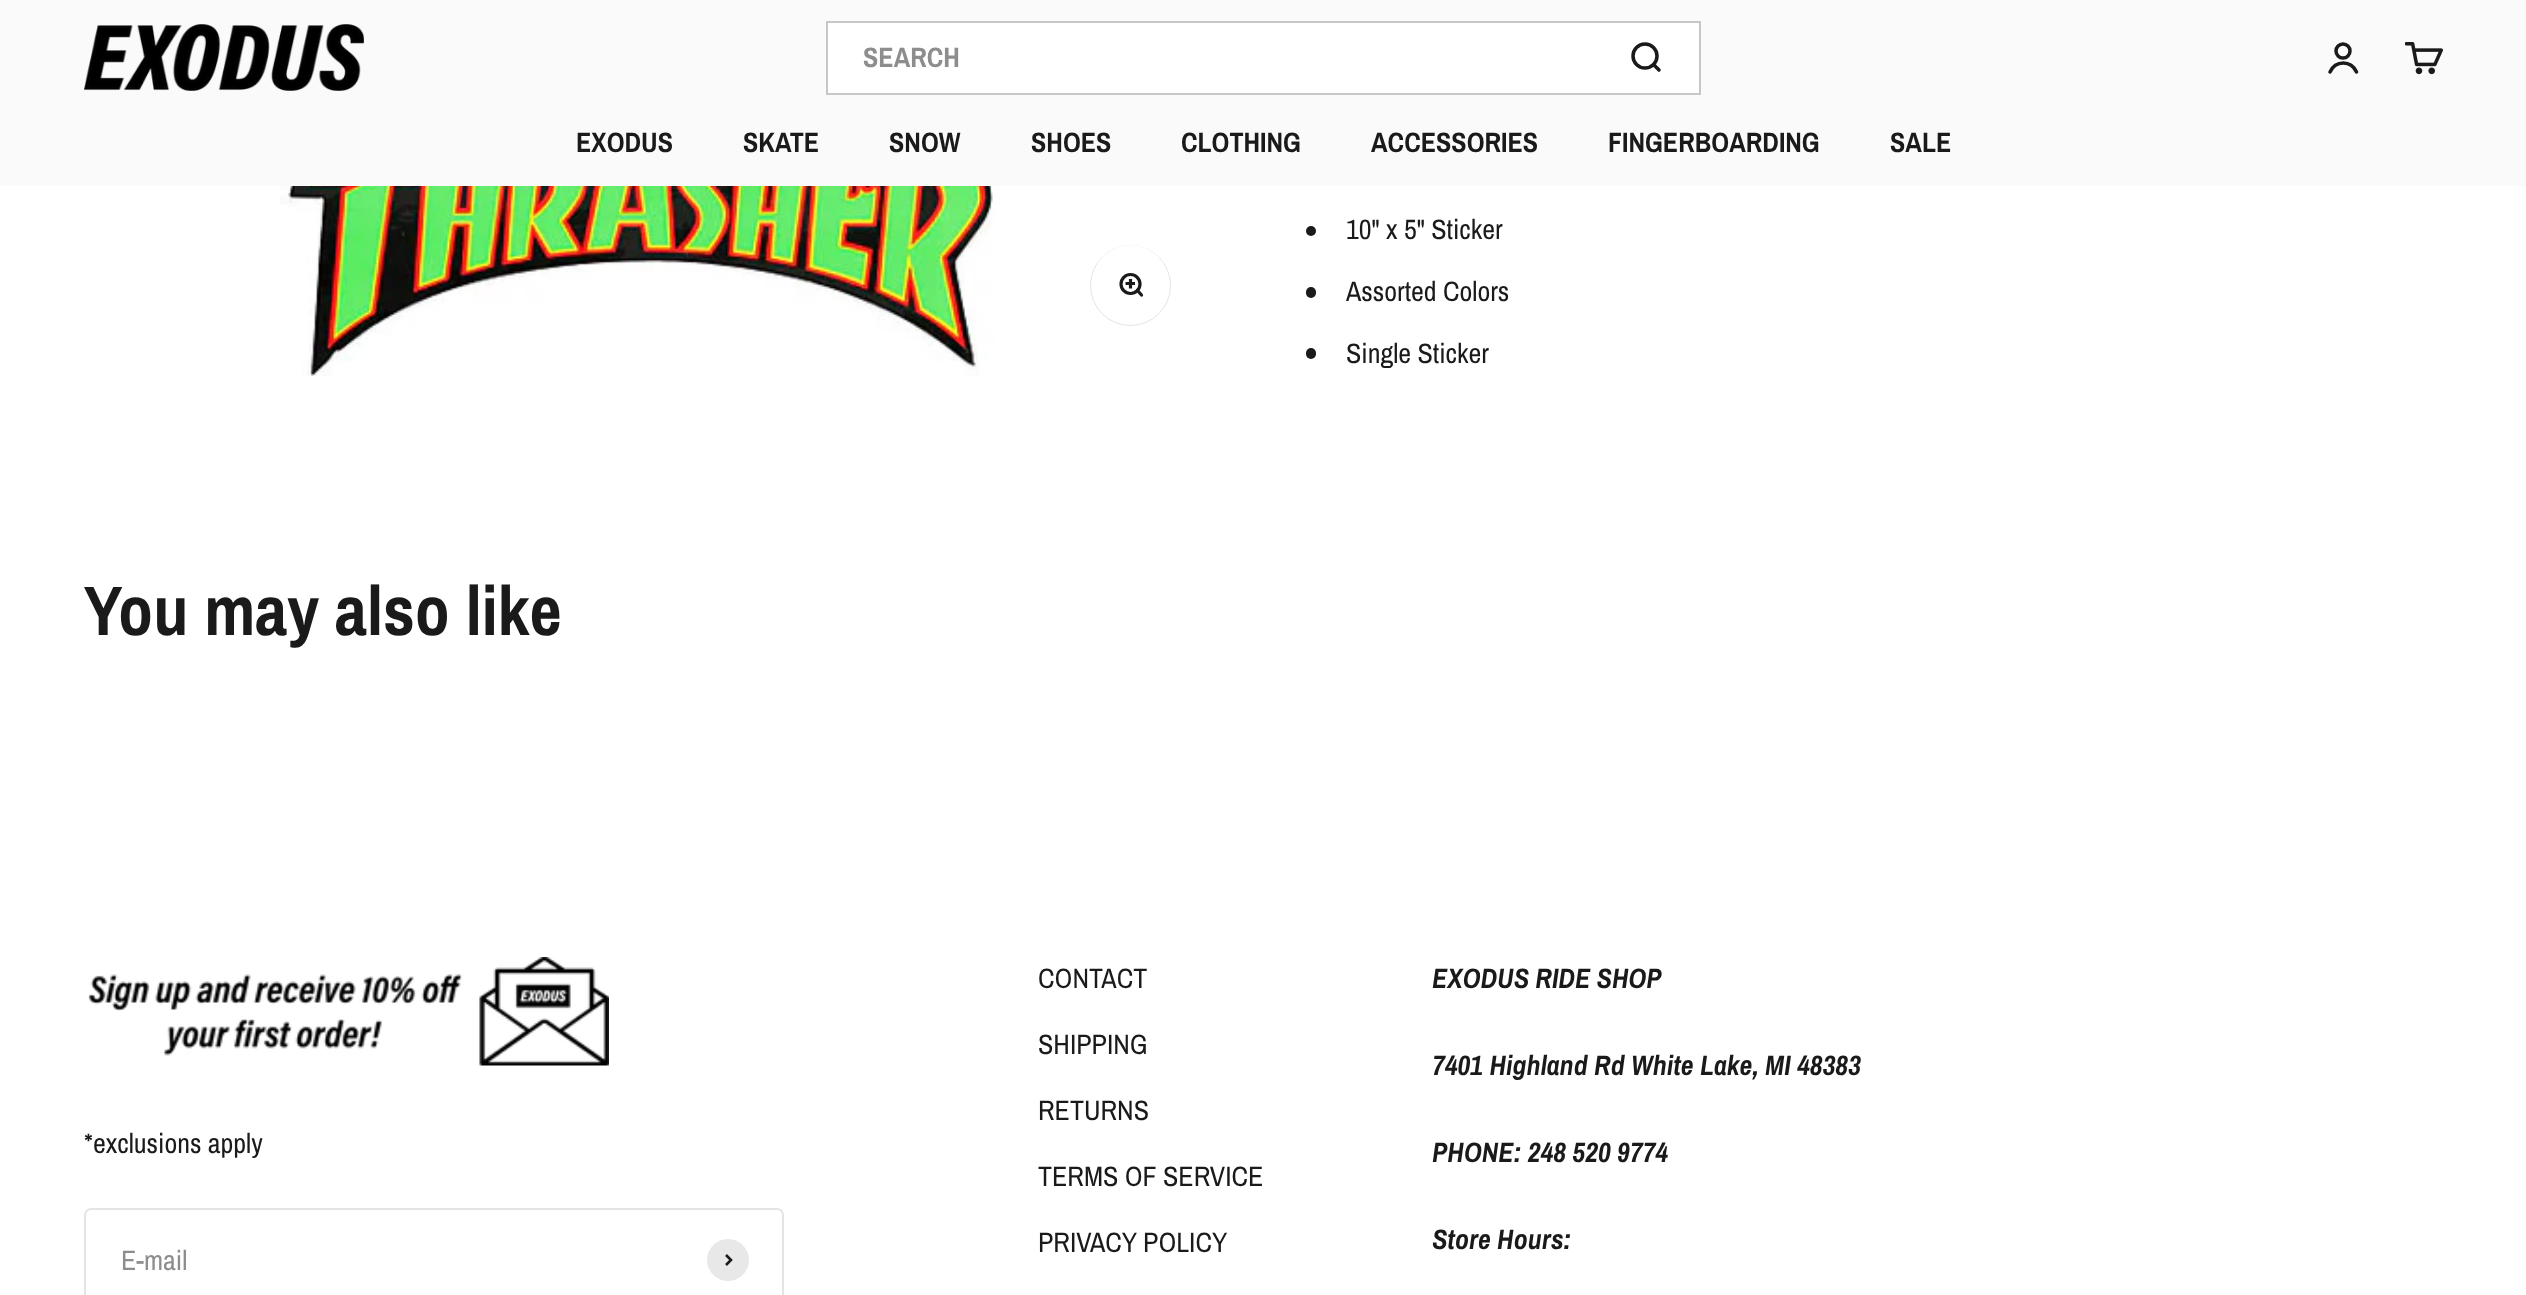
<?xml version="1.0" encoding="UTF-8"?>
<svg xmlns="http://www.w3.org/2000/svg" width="2526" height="1295">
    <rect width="100%" height="100%" fill="#FFFFFF"/>
    <rect x="0" y="0" width="2526" height="186" fill="#FAFAFA"/>
    <image x="84" y="24" width="280" height="67" href="img_01.png"/>
    <rect x="827" y="22" width="873" height="72" fill="none" stroke="#C7C7C7" stroke-width="2"/>
    <rect x="828" y="23" width="871" height="70" fill="#FFFFFF"/>
    <text x="863" y="67" font-family="Archivo Narrow" font-size="28" font-weight="700" fill="#8D8D8D">SEARCH</text>
    <circle cx="1645" cy="56" r="12" fill="none" stroke="#1A1A1A" stroke-width="3.5"/>
    <path d="M 1654 65 L 1659 70" fill="none" stroke="#1A1A1A" stroke-width="3.5" stroke-linecap="round" stroke-linejoin="round"/>
    <circle cx="2343" cy="51" r="7" fill="none" stroke="#1A1A1A" stroke-width="3.5"/>
    <path d="M 2330 72 C 2335.5 60 2351 60 2356.5 72" fill="none" stroke="#1A1A1A" stroke-width="3.5" stroke-linecap="round"/>
    <image x="2405" y="42" width="38" height="33" href="img_02.png"/>
    <text x="576" y="152" font-family="Archivo Narrow" font-size="28" font-weight="700" fill="#1A1A1A">EXODUS</text>
    <text x="743" y="152" font-family="Archivo Narrow" font-size="28" font-weight="700" fill="#1A1A1A">SKATE</text>
    <text x="889" y="152" font-family="Archivo Narrow" font-size="28" font-weight="700" fill="#1A1A1A">SNOW</text>
    <text x="1031" y="152" font-family="Archivo Narrow" font-size="28" font-weight="700" fill="#1A1A1A">SHOES</text>
    <text x="1181" y="152" font-family="Archivo Narrow" font-size="28" font-weight="700" fill="#1A1A1A">CLOTHING</text>
    <text x="1371" y="152" font-family="Archivo Narrow" font-size="28" font-weight="700" fill="#1A1A1A">ACCESSORIES</text>
    <text x="1608" y="152" font-family="Archivo Narrow" font-size="28" font-weight="700" fill="#1A1A1A">FINGERBOARDING</text>
    <text x="1890" y="152" font-family="Archivo Narrow" font-size="28" font-weight="700" fill="#1A1A1A">SALE</text>
    <image x="280" y="186" width="716" height="190" href="img_03.png"/>
    <circle cx="1130.5" cy="285.5" r="40" fill="none" stroke="#E4E4E4"/>
    <rect x="1092" y="245" width="77" height="79" rx="38.5" fill="#FFFFFF"/>
    <circle cx="1130.5" cy="284" r="9.5" fill="none" stroke="#1A1A1A" stroke-width="3.2"/>
    <path d="M 1137.5 290.5 L 1141.5 295" fill="none" stroke="#1A1A1A" stroke-width="3.2" stroke-linecap="round" stroke-linejoin="round"/>
    <path d="M 1130.5 279 V 288.5 M 1125.5 283.5 H 1135" fill="none" stroke="#1A1A1A" stroke-width="3.2"/>
    <circle cx="1311" cy="231" r="5" fill="#1A1A1A"/>
    <text x="1346" y="239" font-family="Archivo Narrow" font-size="28" fill="#1A1A1A">10" x 5" Sticker</text>
    <rect x="1306" y="287" width="10" height="11" rx="5" fill="#1A1A1A"/>
    <text x="1346" y="301" font-family="Archivo Narrow" font-size="28" fill="#1A1A1A">Assorted Colors</text>
    <rect x="1306" y="348" width="10" height="11" rx="5" fill="#1A1A1A"/>
    <text x="1346" y="363" font-family="Archivo Narrow" font-size="28" fill="#1A1A1A">Single Sticker</text>
    <text x="84" y="635" font-family="Archivo Narrow" font-size="70" font-weight="700" fill="#1A1A1A">You may also like</text>
    <image x="88" y="957" width="521" height="109" href="img_04.png"/>
    <text x="84" y="1153" font-family="Archivo Narrow" font-size="28" fill="#1A1A1A">*exclusions apply</text>
    <rect x="85" y="1209" width="698" height="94" rx="6" fill="none" stroke="#E4E4E4" stroke-width="2"/>
    <text x="121" y="1270" font-family="Archivo Narrow" font-size="28" fill="#8D8D8D">E-mail</text>
    <circle cx="728" cy="1260" r="21" fill="#E8E8E8"/>
    <path d="M 726 1265 L 731 1260 L 726 1255" fill="none" stroke="#1A1A1A" stroke-width="2.6"/>
    <text x="1038" y="988" font-family="Archivo Narrow" font-size="28" fill="#1A1A1A">CONTACT</text>
    <text x="1038" y="1054" font-family="Archivo Narrow" font-size="28" fill="#1A1A1A">SHIPPING</text>
    <text x="1038" y="1120" font-family="Archivo Narrow" font-size="28" fill="#1A1A1A">RETURNS</text>
    <text x="1038" y="1186" font-family="Archivo Narrow" font-size="28" fill="#1A1A1A">TERMS OF SERVICE</text>
    <text x="1038" y="1252" font-family="Archivo Narrow" font-size="28" fill="#1A1A1A">PRIVACY POLICY</text>
    <text x="1432" y="988" font-family="Archivo Narrow" font-size="28" font-weight="700" font-style="italic" fill="#1A1A1A">EXODUS RIDE SHOP</text>
    <text x="1432" y="1075" font-family="Archivo Narrow" font-size="28" font-weight="700" font-style="italic" fill="#1A1A1A">7401 Highland Rd White Lake, MI 48383</text>
    <text x="1432" y="1162" font-family="Archivo Narrow" font-size="28" font-weight="700" font-style="italic" fill="#1A1A1A">PHONE: 248 520 9774</text>
    <text x="1432" y="1249" font-family="Archivo Narrow" font-size="28" font-weight="700" font-style="italic" fill="#1A1A1A">Store Hours:</text>
</svg>
